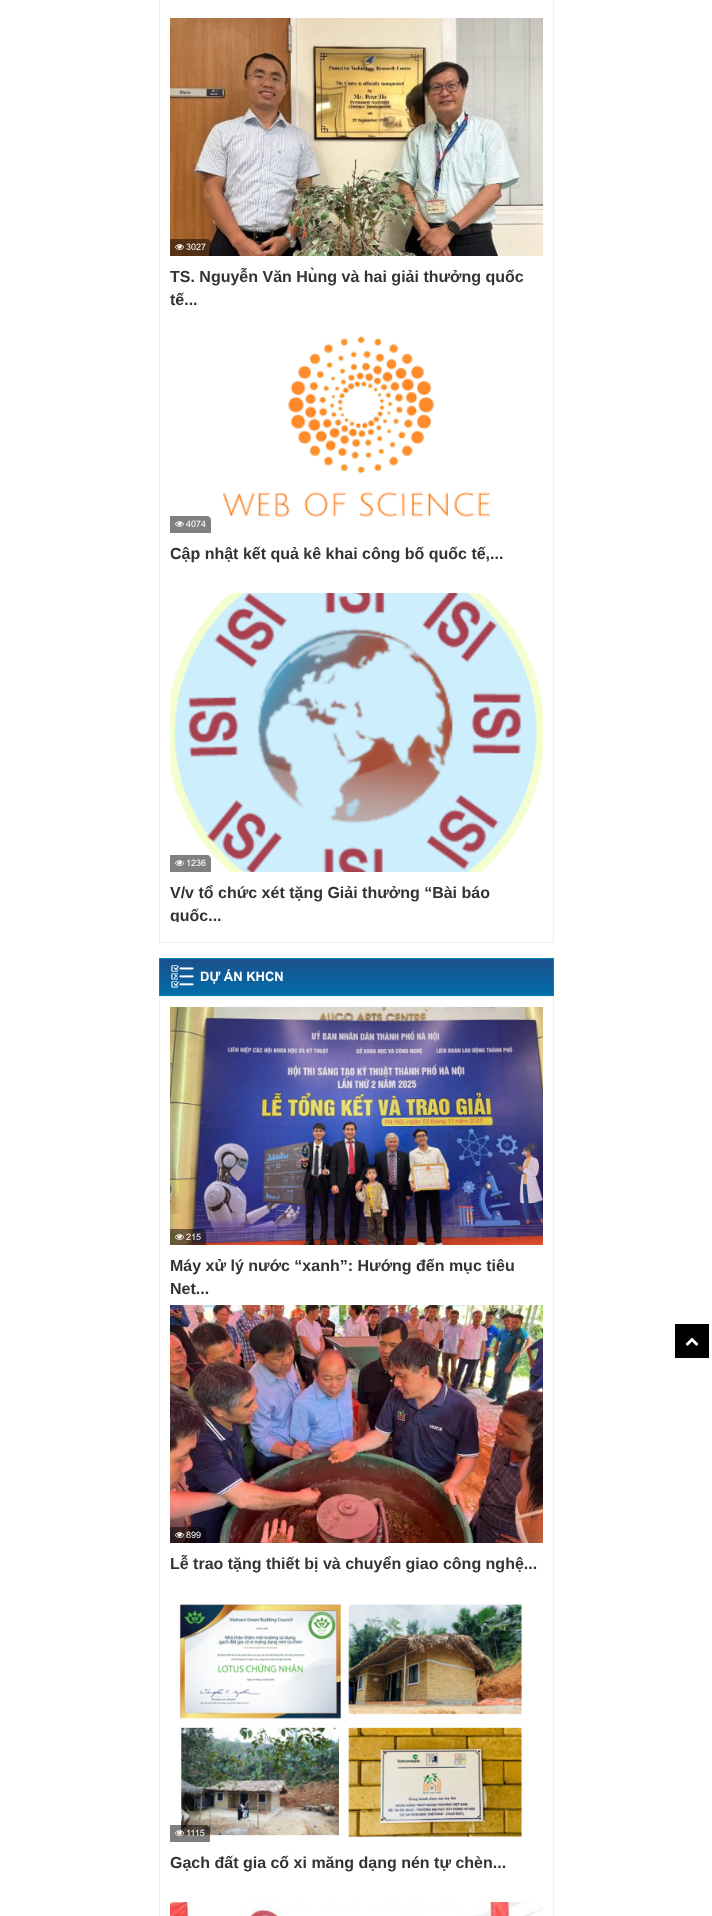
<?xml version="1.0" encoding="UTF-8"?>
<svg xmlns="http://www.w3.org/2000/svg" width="712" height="1916">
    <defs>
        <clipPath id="clip1"><rect x="170" y="882" width="373" height="40"/></clipPath>
        <linearGradient id="g1" gradientUnits="userSpaceOnUse" x1="357" y1="959" x2="357" y2="995"><stop offset="0" stop-color="#1B508D"/><stop offset="1" stop-color="#006CA7"/></linearGradient>
    </defs>
    <rect width="100%" height="100%" fill="#FFFFFF"/>
    <rect x="159.5" y="-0.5" width="394" height="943" fill="none" stroke="#EEEEEE"/>
    <image x="170" y="18" width="373" height="238" href="img_01.png"/>
    <path d="M 170 239 H 207 C 209 239 211 241 211 243 V 256 H 170 Z" fill="#000000" fill-opacity="0.5"/>
    <image x="175" y="244" width="9" height="6" href="img_02.png"/>
    <text x="186" y="250" font-family="Arial" font-size="9" fill="#FFFFFF">3027</text>
    <text font-family="Liberation Sans" font-size="16" font-weight="700" fill="#333333">
        <tspan x="170" y="282">TS. Nguyễn Văn Hùng và hai giải thưởng quốc</tspan>
        <tspan x="170" y="305">tế...</tspan>
    </text>
    <image x="222" y="336" width="268" height="181" href="img_03.png"/>
    <path d="M 170 516 H 207 C 209 516 211 518 211 520 V 533 H 170 Z" fill="#808080"/>
    <image x="175" y="521" width="9" height="6" href="img_04.png"/>
    <text x="186" y="527" font-family="Arial" font-size="9" fill="#FFFFFF">4074</text>
    <text x="170" y="559" font-family="Liberation Sans" font-size="16" font-weight="700" fill="#333333">Cập nhật kết quả kê khai công bố quốc tế,...</text>
    <image x="170" y="593" width="373" height="279" href="img_05.png"/>
    <path d="M 170 855 H 207 C 209 855 211 857 211 859 V 872 H 170 Z" fill="#808080"/>
    <image x="175" y="860" width="9" height="6" href="img_04.png"/>
    <text x="186" y="866" font-family="Arial" font-size="9" fill="#FFFFFF">1236</text>
    <text x="170" y="898" font-family="Liberation Sans" font-size="16" font-weight="700" fill="#333333">V/v tổ chức xét tặng Giải thưởng “Bài báo</text>
    <g clip-path="url(#clip1)">
        <text x="170" y="921" font-family="Liberation Sans" font-size="16" font-weight="700" fill="#333333">quốc...</text>
    </g>
    <rect x="160" y="959" width="393" height="36" fill="url(#g1)"/>
    <rect x="159.5" y="958.5" width="394" height="37" fill="none" stroke="#0187AD"/>
    <image x="171" y="965" width="23" height="23" href="img_06.png"/>
    <text x="200" y="981" font-family="Arial" font-size="13" font-weight="700" fill="#FFFFFF">DỰ ÁN KHCN</text>
    <rect x="159.5" y="996.5" width="394" height="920" fill="none" stroke="#EEEEEE"/>
    <image x="170" y="1007" width="373" height="238" href="img_07.png"/>
    <path d="M 170 1229 H 202 C 204 1229 206 1231 206 1233 V 1245 H 170 Z" fill="#000000" fill-opacity="0.5"/>
    <image x="175" y="1234" width="9" height="6" href="img_08.png"/>
    <text x="186" y="1240" font-family="Arial" font-size="9" fill="#FFFFFF">215</text>
    <text font-family="Liberation Sans" font-size="16" font-weight="700" fill="#333333">
        <tspan x="170" y="1271">Máy xử lý nước “xanh”: Hướng đến mục tiêu</tspan>
        <tspan x="170" y="1294">Net...</tspan>
    </text>
    <image x="170" y="1305" width="373" height="238" href="img_09.png"/>
    <path d="M 170 1527 H 202 C 204 1527 206 1529 206 1531 V 1543 H 170 Z" fill="#000000" fill-opacity="0.5"/>
    <image x="175" y="1532" width="9" height="6" href="img_10.png"/>
    <text x="186" y="1538" font-family="Arial" font-size="9" fill="#FFFFFF">899</text>
    <text x="170" y="1569" font-family="Liberation Sans" font-size="16" font-weight="700" fill="#333333">Lễ trao tặng thiết bị và chuyển giao công nghệ...</text>
    <image x="179" y="1604" width="343" height="234" href="img_11.png"/>
    <path d="M 170 1825 H 206 C 208 1825 210 1827 210 1829 V 1842 H 170 Z" fill="#000000" fill-opacity="0.5"/>
    <image x="175" y="1830" width="9" height="6" href="img_12.png"/>
    <text x="186" y="1836" font-family="Arial" font-size="9" fill="#FFFFFF">1115</text>
    <text x="170" y="1868" font-family="Liberation Sans" font-size="16" font-weight="700" fill="#333333">Gạch đất gia cố xi măng dạng nén tự chèn...</text>
    <image x="170" y="1902" width="373" height="14" href="img_13.png"/>
    <rect x="675" y="1324" width="34" height="34" fill="#000000"/>
    <image x="685" y="1337" width="14" height="9" href="img_14.png"/>
</svg>
